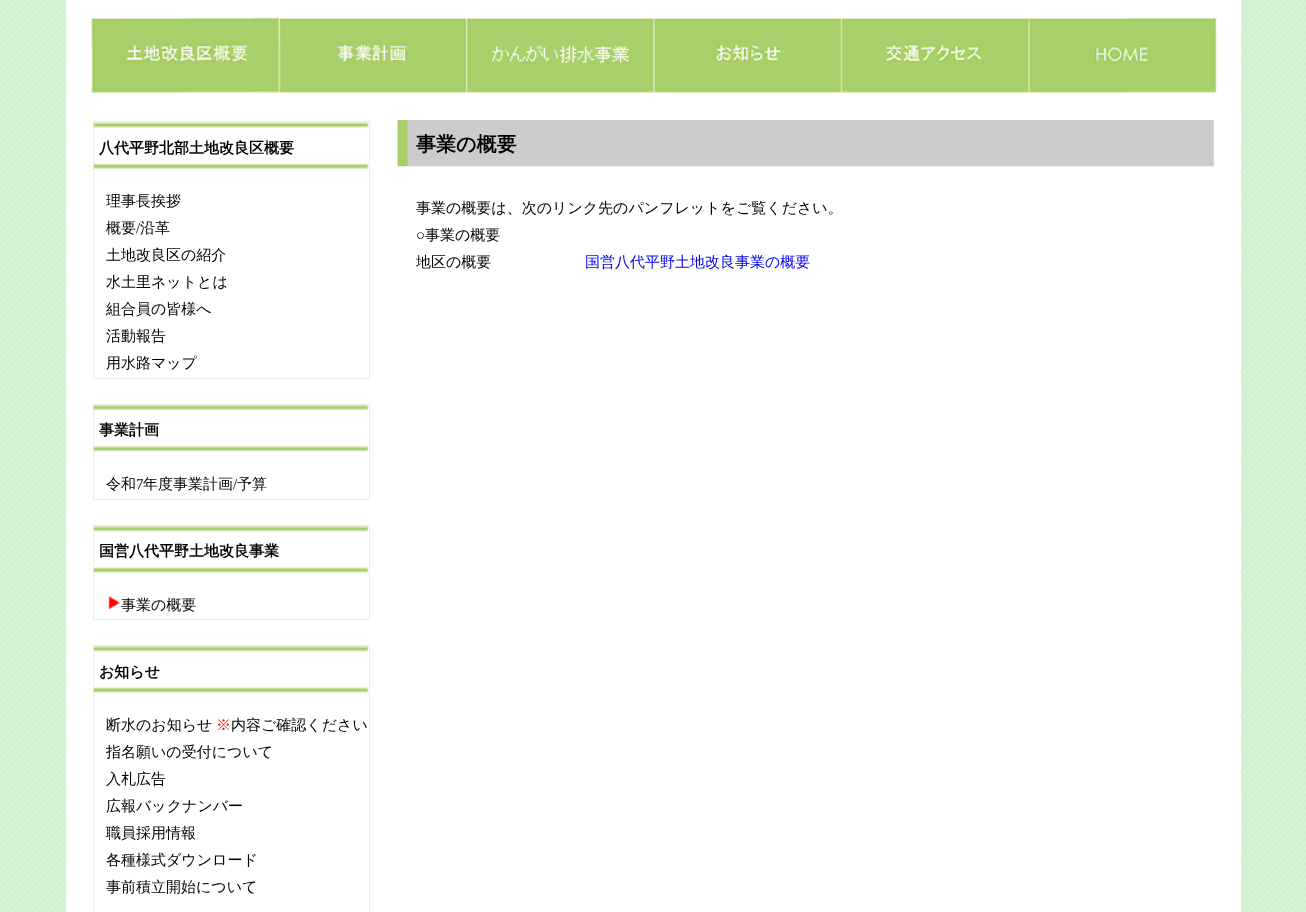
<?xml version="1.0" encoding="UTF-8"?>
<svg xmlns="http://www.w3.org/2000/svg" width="1306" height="912">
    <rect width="100%" height="100%" fill="#FFFFFF"/>
    <image x="0" y="0" width="1306" height="912" href="img_01.png"/>
    <rect x="66" y="0" width="1175" height="912" fill="#FFFFFF"/>
    <image x="91" y="17" width="188" height="76" href="img_02.png"/>
    <image x="278" y="17" width="189" height="76" href="img_03.png"/>
    <image x="466" y="17" width="188" height="76" href="img_04.png"/>
    <image x="653" y="17" width="189" height="76" href="img_05.png"/>
    <image x="841" y="17" width="188" height="76" href="img_06.png"/>
    <image x="1028" y="17" width="189" height="76" href="img_07.png"/>
    <rect x="93.5" y="121.5" width="276" height="257" fill="none" stroke="#EBEBEB"/>
    <image x="93" y="122" width="276" height="47" href="img_08.png"/>
    <text x="99" y="153" font-family="WenQuanYi Zen Hei" font-size="15" font-weight="700" fill="#000000">八代平野北部土地改良区概要</text>
    <text font-family="WenQuanYi Zen Hei" font-size="15" font-weight="500" fill="#000000">
        <tspan x="106" y="206">理事長挨拶</tspan>
        <tspan x="106" y="233">概要</tspan>
    </text>
    <text x="136" y="233" font-family="Liberation Serif" font-size="15" fill="#000000">/</text>
    <text x="140" y="233" font-family="WenQuanYi Zen Hei" font-size="15" font-weight="500" fill="#000000">沿革</text>
    <text font-family="WenQuanYi Zen Hei" font-size="15" font-weight="500" fill="#000000">
        <tspan x="106" y="260">土地改良区の紹介</tspan>
        <tspan x="106" y="287">水土里ネットとは</tspan>
        <tspan x="106" y="314">組合員の皆様へ</tspan>
        <tspan x="106" y="341">活動報告</tspan>
        <tspan x="106" y="368">用水路マップ</tspan>
    </text>
    <rect x="93.5" y="404.5" width="276" height="95" fill="none" stroke="#EBEBEB"/>
    <image x="93" y="405" width="276" height="47" href="img_09.png"/>
    <text x="99" y="435" font-family="WenQuanYi Zen Hei" font-size="15" font-weight="700" fill="#000000">事業計画</text>
    <text x="106" y="489" font-family="WenQuanYi Zen Hei" font-size="15" font-weight="500" fill="#000000">令和</text>
    <text x="136" y="489" font-family="Liberation Serif" font-size="15" fill="#000000">7</text>
    <text x="143" y="489" font-family="WenQuanYi Zen Hei" font-size="15" font-weight="500" fill="#000000">年度事業計画</text>
    <text x="233" y="489" font-family="Liberation Serif" font-size="15" fill="#000000">/</text>
    <text x="237" y="489" font-family="WenQuanYi Zen Hei" font-size="15" font-weight="500" fill="#000000">予算</text>
    <rect x="93.5" y="525.5" width="276" height="94" fill="none" stroke="#EBEBEB"/>
    <image x="93" y="526" width="276" height="47" href="img_10.png"/>
    <text x="99" y="556" font-family="WenQuanYi Zen Hei" font-size="15" font-weight="700" fill="#000000">国営八代平野土地改良事業</text>
    <image x="108" y="596" width="13" height="13" href="img_11.png"/>
    <text x="121" y="610" font-family="WenQuanYi Zen Hei" font-size="15" font-weight="500" fill="#000000">事業の概要</text>
    <rect x="93.5" y="645.5" width="276" height="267" fill="none" stroke="#EBEBEB"/>
    <image x="93" y="646" width="276" height="47" href="img_10.png"/>
    <text x="99" y="677" font-family="WenQuanYi Zen Hei" font-size="15" font-weight="700" fill="#000000">お知らせ</text>
    <text x="106" y="730" font-family="WenQuanYi Zen Hei" font-size="15" font-weight="500" fill="#000000">断水のお知らせ</text>
    <text x="216" y="730" font-family="WenQuanYi Zen Hei" font-size="15" font-weight="500" fill="#FF0000">※</text>
    <text x="231" y="730" font-family="WenQuanYi Zen Hei" font-size="15" font-weight="500" fill="#000000">内容ご確認ください</text>
    <text font-family="WenQuanYi Zen Hei" font-size="15" font-weight="500" fill="#000000">
        <tspan x="106" y="757">指名願いの受付について</tspan>
        <tspan x="106" y="784">入札広告</tspan>
        <tspan x="106" y="811">広報バックナンバー</tspan>
        <tspan x="106" y="838">職員採用情報</tspan>
        <tspan x="106" y="865">各種様式ダウンロード</tspan>
        <tspan x="106" y="892">事前積立開始について</tspan>
    </text>
    <image x="397" y="120" width="817" height="47" href="img_12.png"/>
    <text x="416" y="151" font-family="WenQuanYi Zen Hei" font-size="20" font-weight="700" fill="#000000">事業の概要</text>
    <text x="416" y="213" font-family="WenQuanYi Zen Hei" font-size="15" font-weight="500" fill="#000000">事業の概要は、次のリンク先のパンフレットをご覧ください。</text>
    <text x="416" y="240" font-family="Liberation Serif" font-size="15" fill="#000000">○</text>
    <text x="425" y="240" font-family="WenQuanYi Zen Hei" font-size="15" font-weight="500" fill="#000000">事業の概要</text>
    <text x="416" y="267" font-family="WenQuanYi Zen Hei" font-size="15" font-weight="500" fill="#000000">地区の概要</text>
    <text x="585" y="267" font-family="WenQuanYi Zen Hei" font-size="15" font-weight="500" fill="#0000EE">国営八代平野土地改良事業の概要</text>
</svg>
